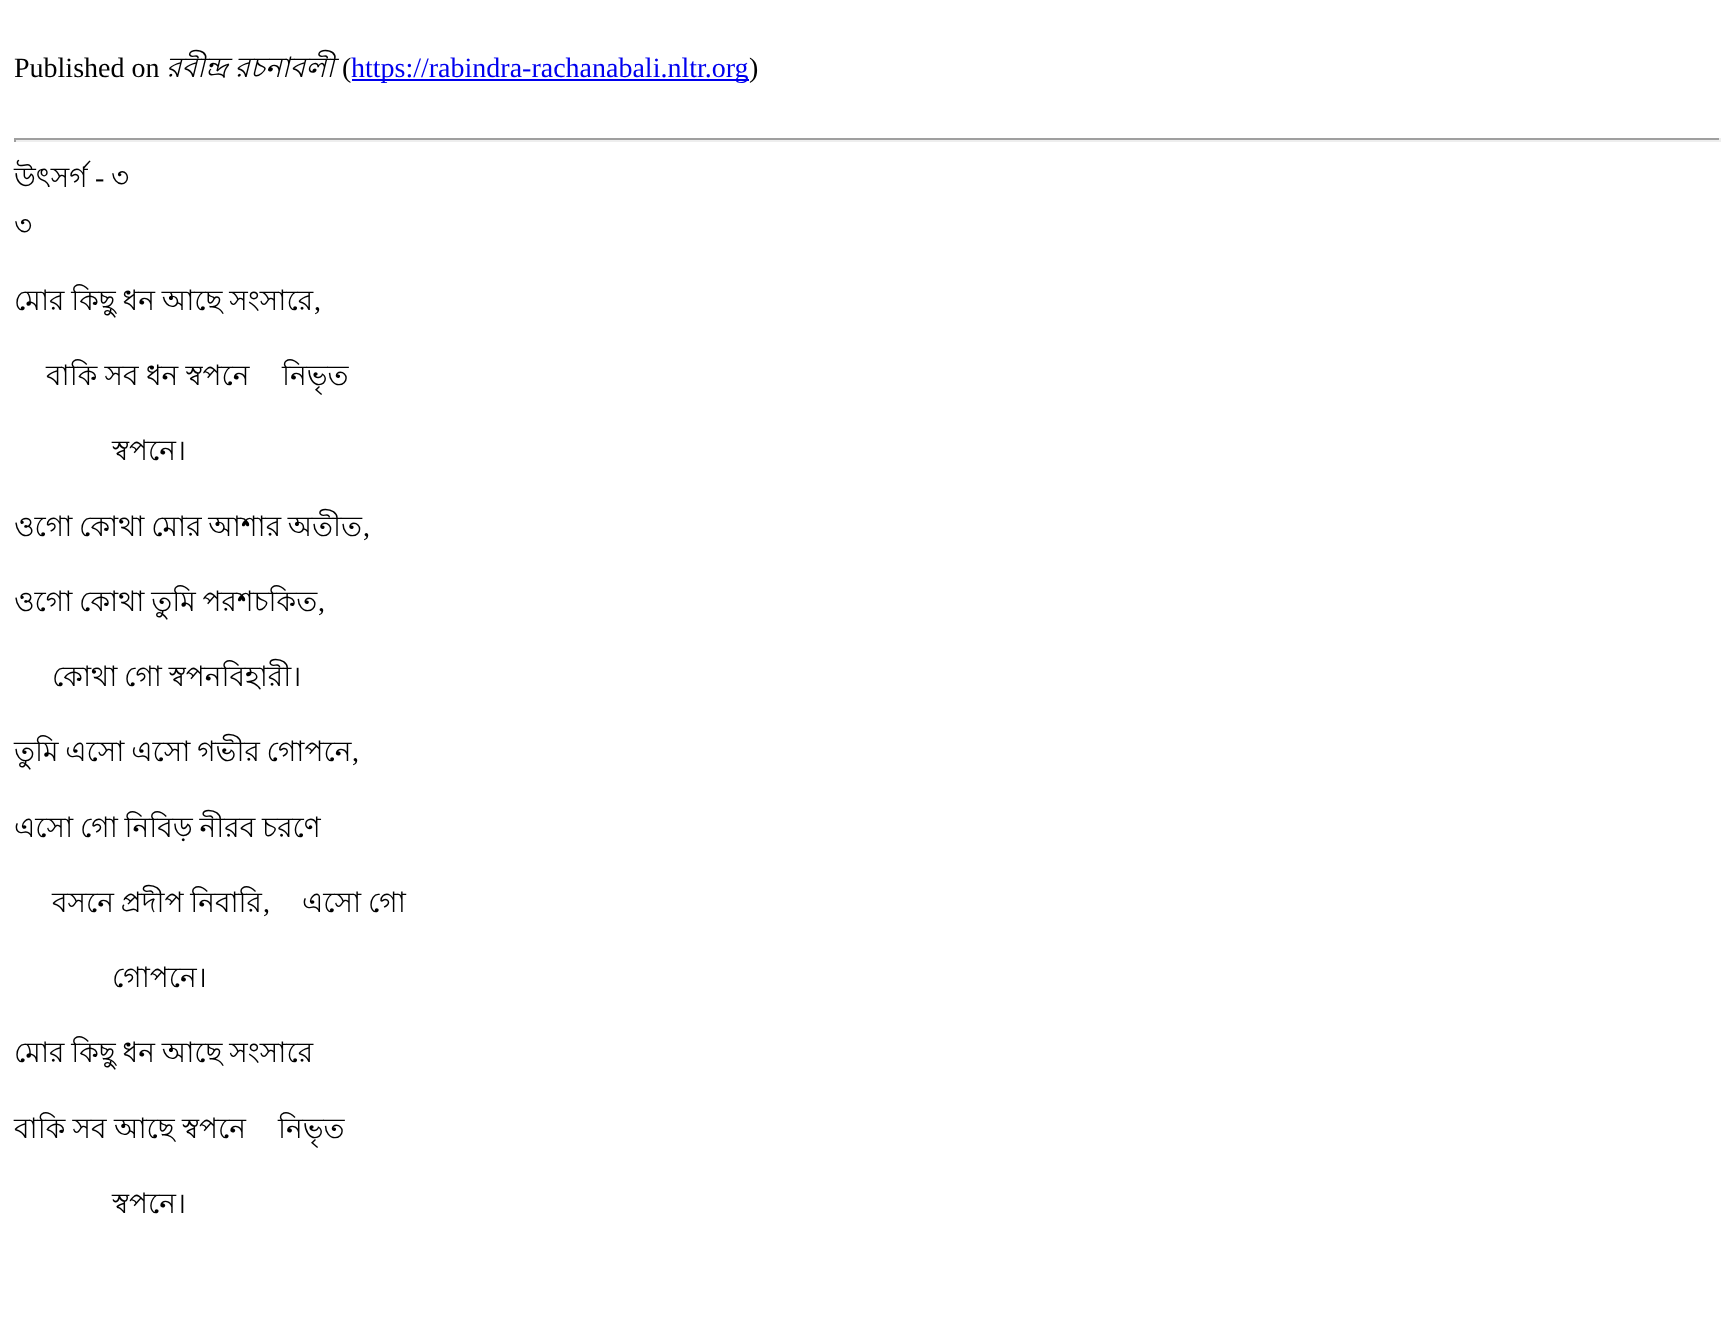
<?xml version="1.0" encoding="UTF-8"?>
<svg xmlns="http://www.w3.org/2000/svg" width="1734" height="1321">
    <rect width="100%" height="100%" fill="#FFFFFF"/>
    <text x="14" y="77" font-family="Liberation Serif" font-size="28" fill="#000000">Published on</text>
    <text x="166" y="77" word-spacing="-1" font-family="Lohit Bengali" font-size="28" font-style="italic" fill="#000000">রবীন্দ্র রচনাবলী</text>
    <text x="342" y="77" font-family="Liberation Serif" font-size="28" fill="#000000">(</text>
    <rect x="352" y="79" width="397" height="2" fill="#0000EE"/>
    <text x="351" y="77" font-family="Liberation Serif" font-size="28" fill="#0000EE">https://rabindra-rachanabali.nltr.org</text>
    <text x="749" y="77" font-family="Liberation Serif" font-size="28" fill="#000000">)</text>
    <rect x="14" y="138" width="1706" height="2" fill="#9F9F9F"/>
    <rect x="1719" y="138" width="2" height="4" fill="#EEEEEE"/>
    <rect x="14" y="140" width="1706" height="2" fill="#EEEEEE"/>
    <rect x="14" y="138" width="2" height="4" fill="#9F9F9F"/>
    <text x="14" y="187" font-family="Lohit Bengali" font-size="28" fill="#000000">উৎসর্গ</text>
    <text x="95" y="187" font-family="Liberation Serif" font-size="28" fill="#000000">-</text>
    <text x="111" y="187" font-family="Lohit Bengali" font-size="28" fill="#000000">৩</text>
    <text x="14" y="235" font-family="Lohit Bengali" font-size="28" fill="#000000">৩</text>
    <text x="14" y="310" word-spacing="-1" font-family="Lohit Bengali" font-size="28" fill="#000000">মোর কিছু ধন আছে সংসারে</text>
    <text x="314" y="310" font-family="Liberation Serif" font-size="28" fill="#000000">,</text>
    <text x="46" y="385" word-spacing="-0.5" font-family="Lohit Bengali" font-size="28" fill="#000000">বাকি সব ধন স্বপনে</text>
    <text x="282" y="385" font-family="Lohit Bengali" font-size="28" fill="#000000">নিভৃত</text>
    <text x="112" y="460" font-family="Lohit Bengali" font-size="28" fill="#000000">স্বপনে।</text>
    <text x="14" y="536" word-spacing="-1" font-family="Lohit Bengali" font-size="28" fill="#000000">ওগো কোথা মোর আশার অতীত</text>
    <text x="363" y="536" font-family="Liberation Serif" font-size="28" fill="#000000">,</text>
    <text x="14" y="611" word-spacing="-1" font-family="Lohit Bengali" font-size="28" fill="#000000">ওগো কোথা তুমি পরশচকিত</text>
    <text x="318" y="611" font-family="Liberation Serif" font-size="28" fill="#000000">,</text>
    <text x="52" y="686" word-spacing="-1" font-family="Lohit Bengali" font-size="28" fill="#000000">কোথা গো স্বপনবিহারী।</text>
    <text x="14" y="761" word-spacing="-1" font-family="Lohit Bengali" font-size="28" fill="#000000">তুমি এসো এসো গভীর গোপনে</text>
    <text x="352" y="761" font-family="Liberation Serif" font-size="28" fill="#000000">,</text>
    <text x="14" y="837" word-spacing="-1" font-family="Lohit Bengali" font-size="28" fill="#000000">এসো গো নিবিড় নীরব চরণে</text>
    <text x="52" y="912" word-spacing="-1" font-family="Lohit Bengali" font-size="28" fill="#000000">বসনে প্রদীপ নিবারি</text>
    <text x="263" y="912" font-family="Liberation Serif" font-size="28" fill="#000000">,</text>
    <text x="302" y="912" word-spacing="-1" font-family="Lohit Bengali" font-size="28" fill="#000000">এসো গো</text>
    <text x="112" y="987" font-family="Lohit Bengali" font-size="28" fill="#000000">গোপনে।</text>
    <text x="14" y="1062" word-spacing="-1" font-family="Lohit Bengali" font-size="28" fill="#000000">মোর কিছু ধন আছে সংসারে</text>
    <text x="14" y="1138" word-spacing="-0.5" font-family="Lohit Bengali" font-size="28" fill="#000000">বাকি সব আছে স্বপনে</text>
    <text x="278" y="1138" font-family="Lohit Bengali" font-size="28" fill="#000000">নিভৃত</text>
    <text x="112" y="1213" font-family="Lohit Bengali" font-size="28" fill="#000000">স্বপনে।</text>
</svg>
